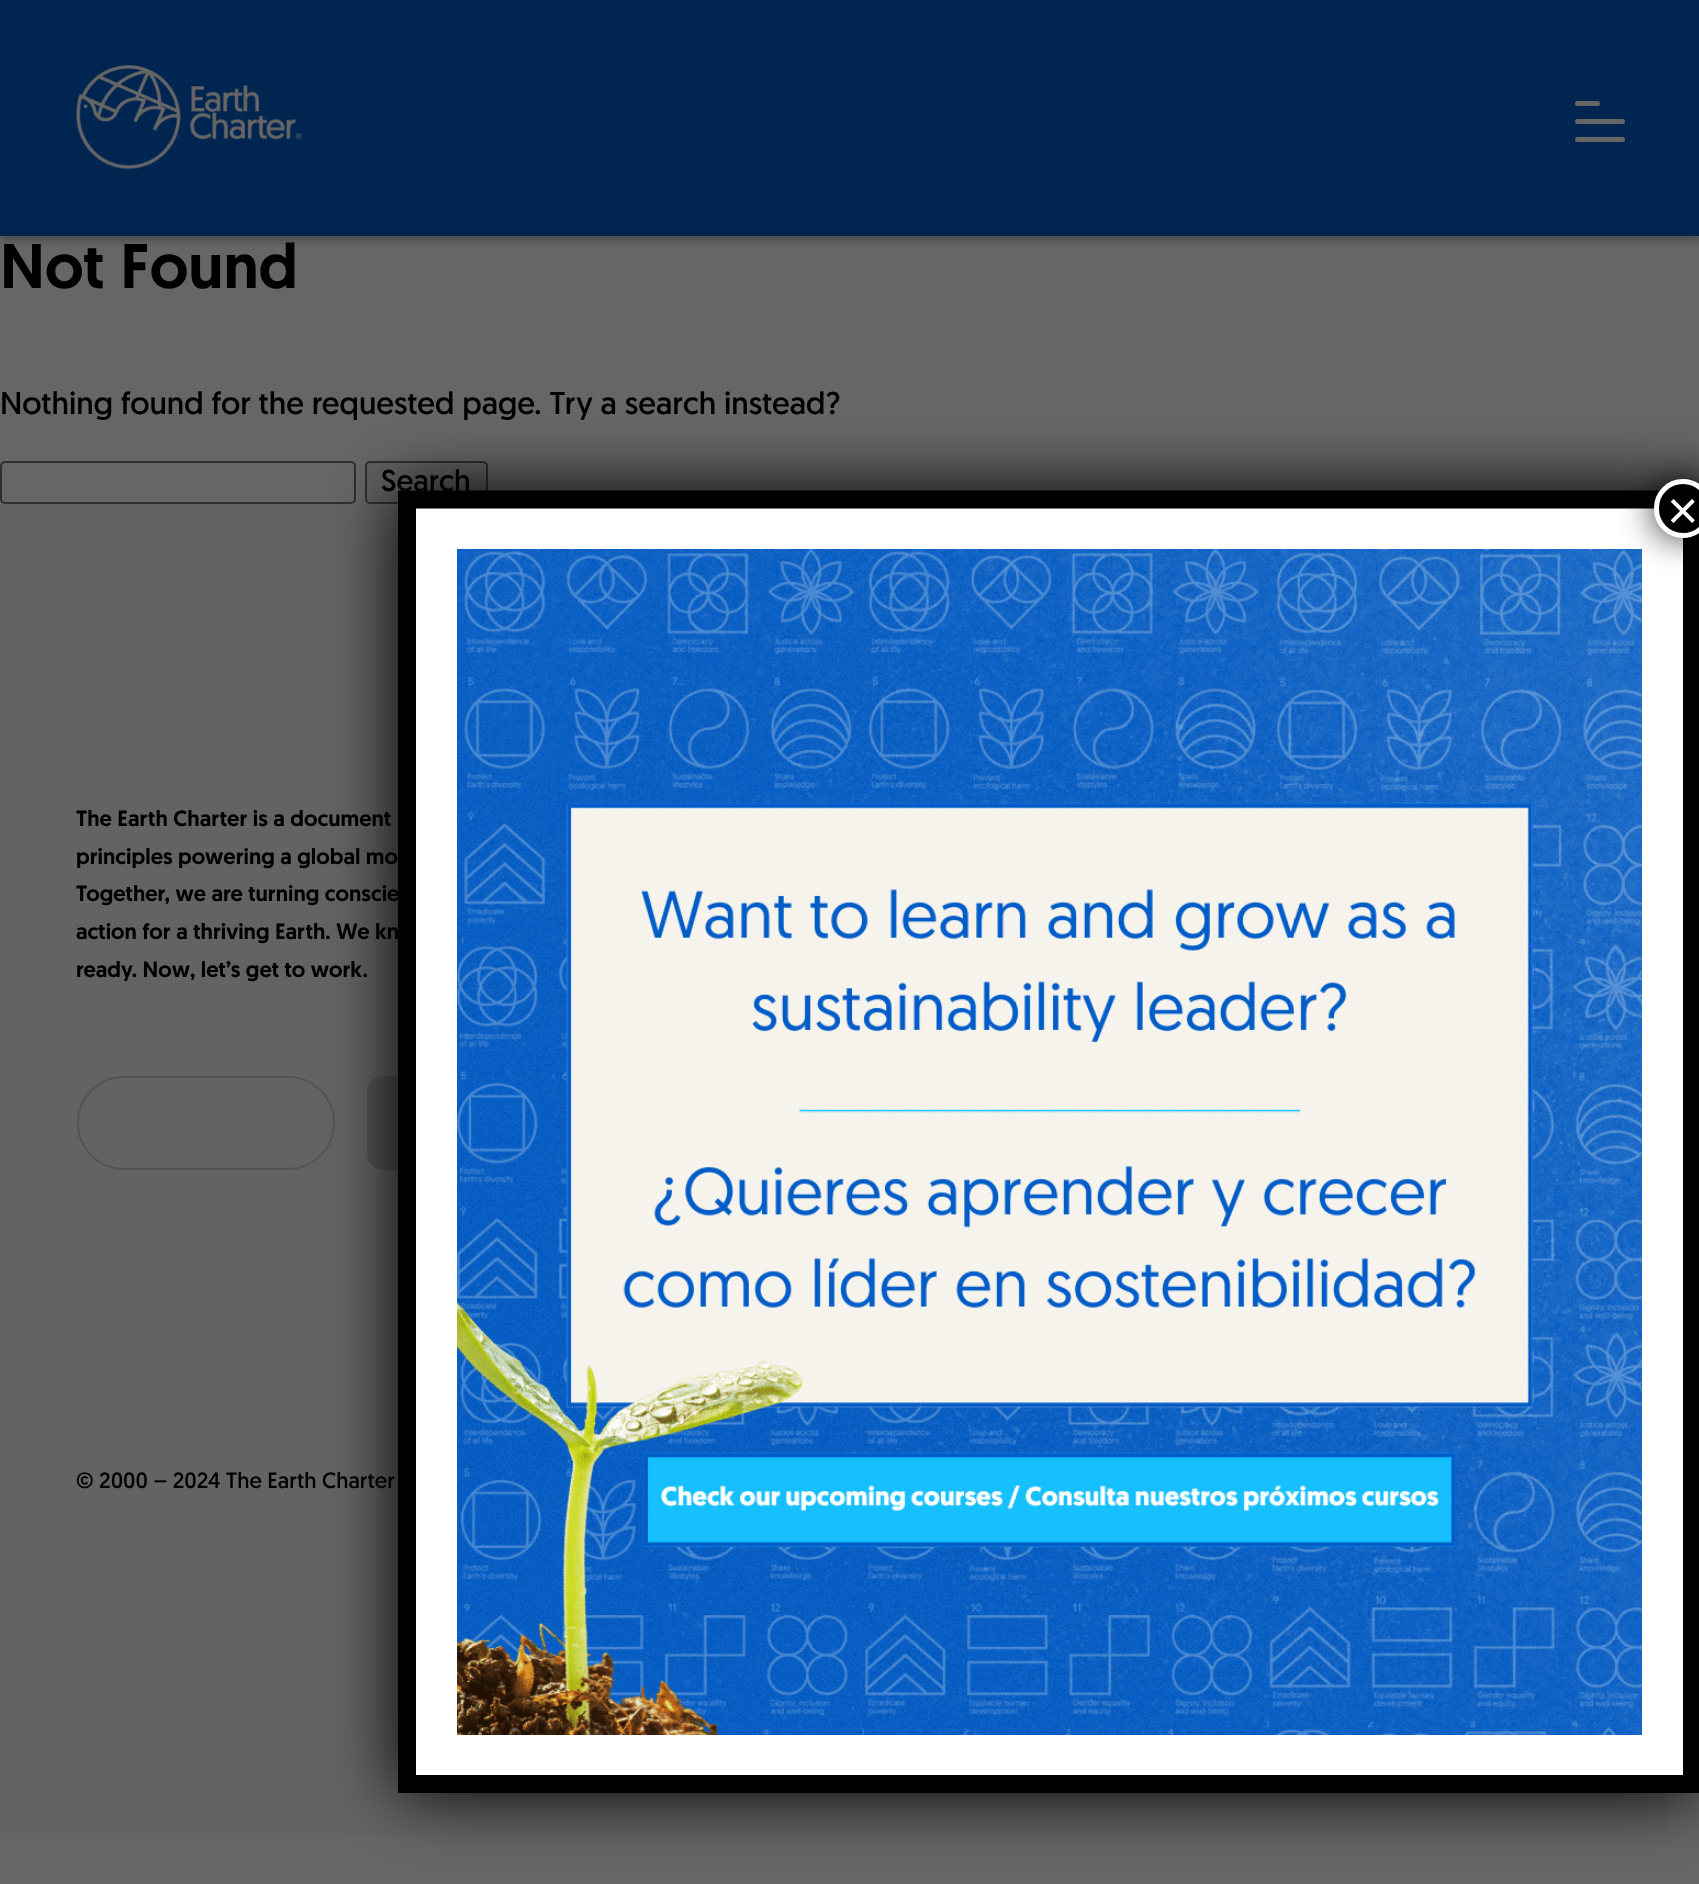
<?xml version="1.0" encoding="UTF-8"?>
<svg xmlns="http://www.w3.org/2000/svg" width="1699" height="1884">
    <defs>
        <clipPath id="clip1"><rect x="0" y="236" width="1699" height="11"/></clipPath>
        <filter id="blur1" x="-50%" y="-200%" width="200%" height="500%"><feGaussianBlur stdDeviation="4.5"/></filter>
        <filter id="blur2" x="-50%" y="-200%" width="200%" height="500%"><feGaussianBlur stdDeviation="34"/></filter>
        <filter id="blur3" x="-50%" y="-200%" width="200%" height="500%"><feGaussianBlur stdDeviation="17"/></filter>
    </defs>
    <rect width="100%" height="100%" fill="#666666"/>
    <rect x="0" y="0" width="1699" height="236" fill="#002550"/>
    <g clip-path="url(#clip1)">
        <rect x="0" y="5" width="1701" height="236" fill="#000000" fill-opacity="0.25" filter="url(#blur1)"/>
    </g>
    <image x="76" y="65" width="227" height="105" href="img_01.png"/>
    <rect x="1575" y="101" width="25" height="5" rx="2.5" fill="#666666"/>
    <rect x="1575" y="119" width="50" height="5" rx="2.5" fill="#666666"/>
    <rect x="1575" y="137" width="50" height="5" rx="2.5" fill="#666666"/>
    <text x="0" y="288" font-family="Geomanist" font-size="63" font-weight="500" fill="#000000">Not Found</text>
    <text x="0" y="414" font-family="Geomanist" font-size="31.5" fill="#000000">Nothing found for the requested page. Try a search instead?</text>
    <rect x="1" y="462" width="354" height="41" rx="4" fill="none" stroke="#2F2F2F" stroke-width="2"/>
    <rect x="366" y="462" width="121" height="41" rx="4" fill="#606060" stroke="#2F2F2F" stroke-width="2"/>
    <text x="381" y="491" font-family="Geomanist" font-size="30" fill="#000000">Search</text>
    <rect x="0" y="504" width="1667" height="1330" fill="#636363"/>
    <text font-family="Geomanist" font-size="22" font-weight="500" fill="#000000">
        <tspan x="76" y="826">The Earth Charter is a document</tspan>
        <tspan x="76" y="864">principles powering a global mo</tspan>
        <tspan x="76" y="901">Together, we are turning conscie</tspan>
        <tspan x="76" y="939">action for a thriving Earth. We kn</tspan>
        <tspan x="76" y="977">ready. Now, let’s get to work.</tspan>
    </text>
    <rect x="78" y="1077" width="256" height="92" rx="46" fill="none" stroke="#545454" stroke-width="2"/>
    <rect x="368" y="1077" width="149" height="92" rx="15" fill="#545454" stroke="#545454" stroke-width="2"/>
    <text x="76" y="1488" font-family="Geomanist" font-size="22" fill="#000000">© 2000 – 2024 The Earth Charter</text>
    <rect x="398" y="491" width="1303" height="1302" rx="7" fill="#020202" filter="url(#blur2)"/>
    <rect x="416" y="508" width="1267" height="1267" fill="#FFFFFF"/>
    <path d="M 407 499.5 H 1692 V 1784 H 407 Z" fill="none" stroke="#000000" stroke-width="18"/>
    <image x="457" y="549" width="1185" height="1186" href="img_02.png"/>
    <rect x="1652" y="477" width="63" height="63" rx="31.5" fill="#020202" fill-opacity="0.75" filter="url(#blur3)"/>
    <rect x="1656.5" y="481.5" width="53" height="54" rx="26.5" fill="#000000" stroke="#FFFFFF" stroke-width="5"/>
    <text x="1667" y="529" font-family="Liberation Sans" font-size="54" fill="#FFFFFF">×</text>
</svg>
